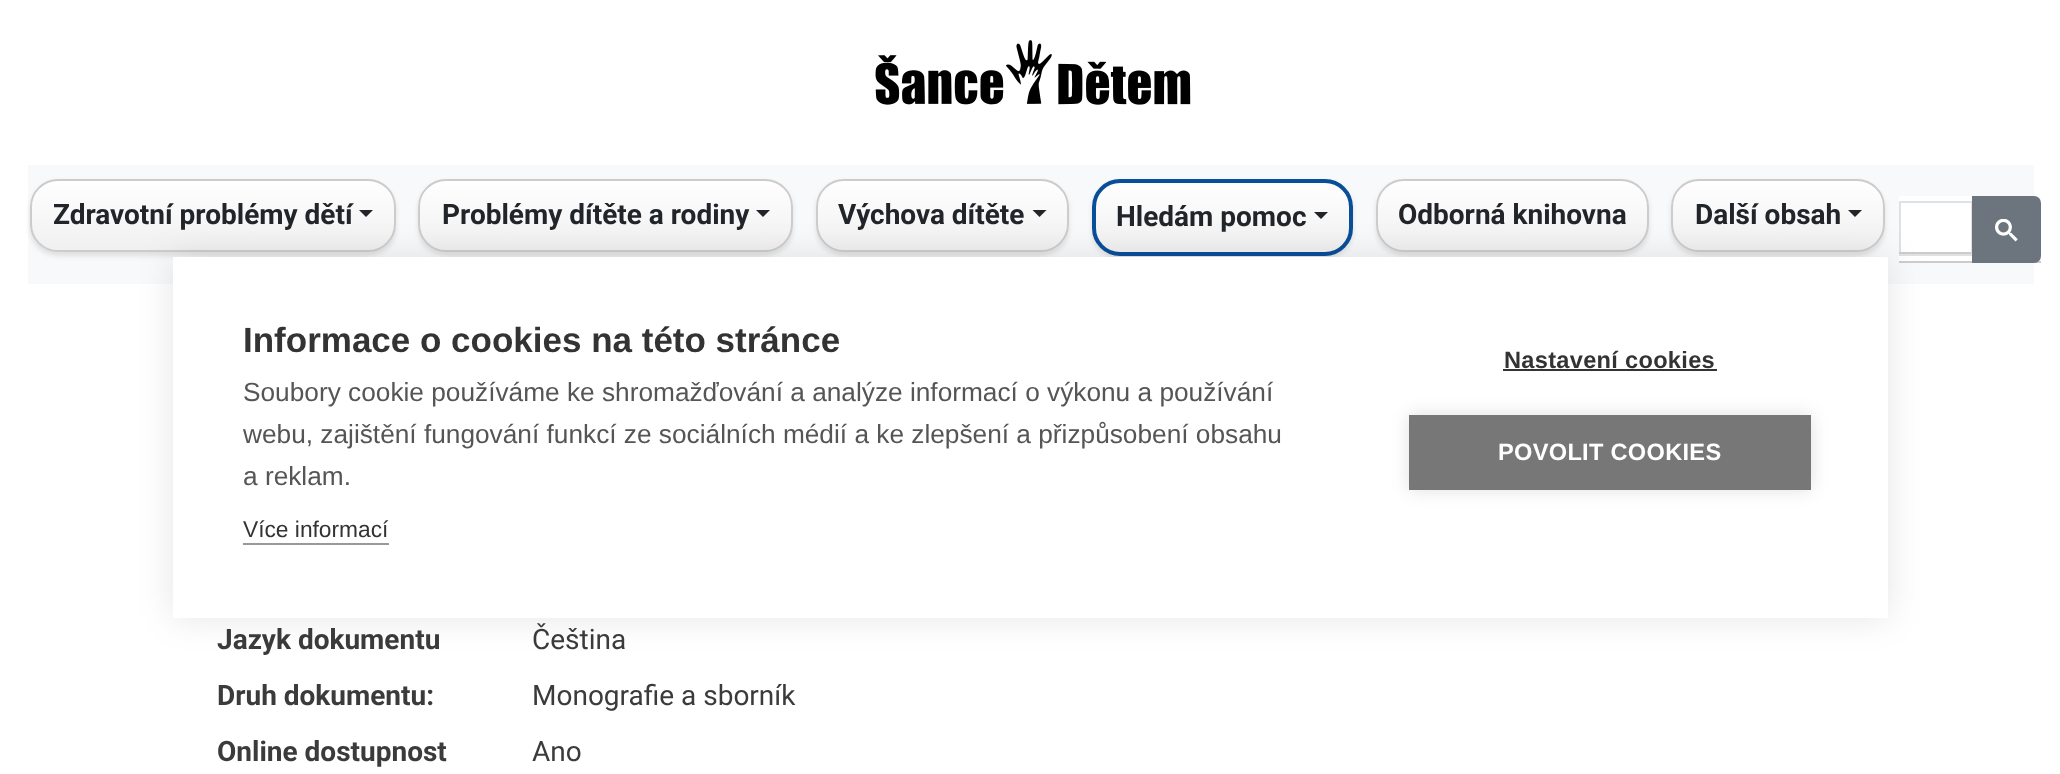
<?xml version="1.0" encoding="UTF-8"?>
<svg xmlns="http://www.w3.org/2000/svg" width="2060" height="774">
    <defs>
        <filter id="blur1" x="-50%" y="-200%" width="200%" height="500%"><feGaussianBlur stdDeviation="2.5"/></filter>
        <clipPath id="clip1"><rect x="30" y="179" width="366" height="73" rx="28"/></clipPath>
        <linearGradient id="g1" gradientUnits="userSpaceOnUse" x1="213" y1="180" x2="213" y2="250"><stop offset="0" stop-color="#FFFFFF"/><stop offset="1" stop-color="#F0F0F0"/></linearGradient>
        <clipPath id="clip2"><rect x="418" y="179" width="375" height="73" rx="28"/></clipPath>
        <linearGradient id="g2" gradientUnits="userSpaceOnUse" x1="606" y1="180" x2="606" y2="250"><stop offset="0" stop-color="#FFFFFF"/><stop offset="1" stop-color="#F0F0F0"/></linearGradient>
        <clipPath id="clip3"><rect x="816" y="179" width="253" height="73" rx="28"/></clipPath>
        <linearGradient id="g3" gradientUnits="userSpaceOnUse" x1="942" y1="180" x2="942" y2="250"><stop offset="0" stop-color="#FFFFFF"/><stop offset="1" stop-color="#F0F0F0"/></linearGradient>
        <clipPath id="clip4"><rect x="1092" y="179" width="261" height="77" rx="28"/></clipPath>
        <linearGradient id="g4" gradientUnits="userSpaceOnUse" x1="1222" y1="182" x2="1222" y2="252"><stop offset="0" stop-color="#FFFFFF"/><stop offset="1" stop-color="#F0F0F0"/></linearGradient>
        <clipPath id="clip5"><rect x="1376" y="179" width="273" height="73" rx="28"/></clipPath>
        <linearGradient id="g5" gradientUnits="userSpaceOnUse" x1="1512" y1="180" x2="1512" y2="250"><stop offset="0" stop-color="#FFFFFF"/><stop offset="1" stop-color="#F0F0F0"/></linearGradient>
        <clipPath id="clip6"><rect x="1671" y="179" width="214" height="73" rx="28"/></clipPath>
        <linearGradient id="g6" gradientUnits="userSpaceOnUse" x1="1778" y1="180" x2="1778" y2="250"><stop offset="0" stop-color="#FFFFFF"/><stop offset="1" stop-color="#F0F0F0"/></linearGradient>
        <filter id="blur2" x="-50%" y="-200%" width="200%" height="500%"><feGaussianBlur stdDeviation="17.5"/></filter>
        <filter id="blur3" x="-50%" y="-200%" width="200%" height="500%"><feGaussianBlur stdDeviation="9"/></filter>
    </defs>
    <rect width="100%" height="100%" fill="#FFFFFF"/>
    <image x="875" y="40" width="316" height="65" href="img_01.png"/>
    <rect x="28" y="165" width="2006" height="119" fill="#F8F9FA"/>
    <rect x="30" y="182" width="366" height="74" rx="28" fill="#000000" fill-opacity="0.1" filter="url(#blur1)"/>
    <g clip-path="url(#clip1)">
        <rect x="30" y="180" width="366" height="70" fill="url(#g1)"/>
    </g>
    <path d="M 58 182 H 368 C 382 182 394 194 394 208 V 206 C 394 192 382 180 368 180 H 58 C 44 180 32 192 32 206 V 208 C 32 194 43 182 58 182 Z" fill="#FFFFFF"/>
    <rect x="31" y="180" width="364" height="71" rx="27" fill="none" stroke="#CCCCCC" stroke-width="2"/>
    <text x="53" y="224" font-family="Roboto" font-size="28" font-weight="700" fill="#212529">Zdravotní problémy dětí</text>
    <path d="M 359 210 H 373 L 366 217 Z" fill="#212529"/>
    <rect x="418" y="182" width="375" height="74" rx="28" fill="#000000" fill-opacity="0.1" filter="url(#blur1)"/>
    <g clip-path="url(#clip2)">
        <rect x="418" y="180" width="375" height="70" fill="url(#g2)"/>
    </g>
    <path d="M 446 182 H 765 C 779 182 791 194 791 208 V 206 C 791 192 779 180 765 180 H 446 C 432 180 420 192 420 206 V 208 C 420 194 432 182 446 182 Z" fill="#FFFFFF"/>
    <rect x="419" y="180" width="373" height="71" rx="27" fill="none" stroke="#CCCCCC" stroke-width="2"/>
    <text x="442" y="224" font-family="Roboto" font-size="28" font-weight="700" fill="#212529">Problémy dítěte a rodiny</text>
    <path d="M 756 210 H 770 L 763 217 Z" fill="#212529"/>
    <rect x="816" y="182" width="253" height="74" rx="28" fill="#000000" fill-opacity="0.1" filter="url(#blur1)"/>
    <g clip-path="url(#clip3)">
        <rect x="816" y="180" width="253" height="70" fill="url(#g3)"/>
    </g>
    <path d="M 844 182 H 1041 C 1056 182 1068 194 1068 208 V 206 C 1068 192 1056 180 1042 180 H 843 C 829 180 817 192 817 206 V 208 C 817 194 829 182 844 182 Z" fill="#FFFFFF"/>
    <rect x="817" y="180" width="251" height="71" rx="27" fill="none" stroke="#CCCCCC" stroke-width="2"/>
    <text x="838" y="224" font-family="Roboto" font-size="28" font-weight="700" fill="#212529">Výchova dítěte</text>
    <path d="M 1032.5 210 H 1046.5 L 1039.5 217 Z" fill="#212529"/>
    <rect x="1092" y="182" width="261" height="77" rx="28" fill="#000000" fill-opacity="0.1" filter="url(#blur1)"/>
    <g clip-path="url(#clip4)">
        <rect x="1092" y="182" width="261" height="70" fill="url(#g4)"/>
    </g>
    <rect x="1094" y="181" width="257" height="73" rx="26" fill="none" stroke="#094E99" stroke-width="4"/>
    <text x="1116" y="226" font-family="Roboto" font-size="28" font-weight="700" fill="#212529">Hledám pomoc</text>
    <path d="M 1314 212 H 1328 L 1321 219 Z" fill="#212529"/>
    <rect x="1376" y="182" width="273" height="74" rx="28" fill="#000000" fill-opacity="0.1" filter="url(#blur1)"/>
    <g clip-path="url(#clip5)">
        <rect x="1376" y="180" width="273" height="70" fill="url(#g5)"/>
    </g>
    <path d="M 1404 182 H 1620 C 1635 182 1647 194 1647 208 C 1647 172 1609 180 1585 180 H 1439 C 1415 180 1377 172 1377 208 C 1377 194 1389 182 1404 182 Z" fill="#FFFFFF"/>
    <rect x="1377" y="180" width="271" height="71" rx="27" fill="none" stroke="#CCCCCC" stroke-width="2"/>
    <text x="1398" y="224" font-family="Roboto" font-size="28" font-weight="700" fill="#212529">Odborná knihovna</text>
    <rect x="1671" y="182" width="214" height="74" rx="28" fill="#000000" fill-opacity="0.1" filter="url(#blur1)"/>
    <g clip-path="url(#clip6)">
        <rect x="1671" y="180" width="214" height="70" fill="url(#g6)"/>
    </g>
    <path d="M 1699 182 H 1857 C 1871 182 1883 194 1883 208 V 206 C 1883 192 1871 180 1857 180 H 1699 C 1685 180 1673 192 1673 206 V 208 C 1673 194 1685 182 1699 182 Z" fill="#FFFFFF"/>
    <rect x="1672" y="180" width="212" height="71" rx="27" fill="none" stroke="#CCCCCC" stroke-width="2"/>
    <text x="1695" y="224" font-family="Roboto" font-size="28" font-weight="700" fill="#212529">Další obsah</text>
    <path d="M 1848 210 H 1862 L 1855 217 Z" fill="#212529"/>
    <rect x="1899" y="196" width="135" height="65" fill="#FFFFFF"/>
    <rect x="1899" y="261" width="142" height="2" fill="#CCCCCC"/>
    <rect x="1900" y="202" width="71" height="53" fill="none" stroke="#DFE1E5" stroke-width="2"/>
    <rect x="1970" y="203" width="1" height="49" fill="#FFFFFF"/>
    <rect x="1899" y="252" width="72" height="2" fill="#CCCCCC"/>
    <path d="M 1973 197 H 2034 C 2037.5 197 2040 199.5 2040 203 V 256 C 2040 259.5 2037.5 262 2034 262 H 1973 Z" fill="#6C757D" stroke="#6C757D" stroke-width="2"/>
    <image x="1995" y="219" width="23" height="23" href="img_02.png"/>
    <text x="217" y="649" font-family="Roboto" font-size="28" font-weight="700" fill="#3B3B3B">Jazyk dokumentu</text>
    <text x="532" y="649" font-family="Roboto" font-size="28" fill="#3B3B3B">Čeština</text>
    <text x="217" y="705" font-family="Roboto" font-size="28" font-weight="700" fill="#3B3B3B">Druh dokumentu:</text>
    <text x="532" y="705" font-family="Roboto" font-size="28" fill="#3B3B3B">Monografie a sborník</text>
    <text x="217" y="761" font-family="Roboto" font-size="28" font-weight="700" fill="#3B3B3B">Online dostupnost</text>
    <text x="532" y="761" font-family="Roboto" font-size="28" fill="#3B3B3B">Ano</text>
    <rect x="173" y="257" width="1715" height="361" fill="#000000" fill-opacity="0.1" filter="url(#blur2)"/>
    <rect x="173" y="257" width="1715" height="361" fill="#FFFFFF"/>
    <text x="243" y="352" font-family="Liberation Sans" font-size="35" font-weight="700" fill="#333333">Informace o cookies na této stránce</text>
    <text font-family="Liberation Sans" font-size="26.25" fill="#555555">
        <tspan x="243" y="401">Soubory cookie používáme ke shromažďování a analýze informací o výkonu a používání</tspan>
        <tspan x="243" y="443">webu, zajištění fungování funkcí ze sociálních médií a ke zlepšení a přizpůsobení obsahu</tspan>
        <tspan x="243" y="485">a reklam.</tspan>
    </text>
    <text x="243" y="537" font-family="Liberation Sans" font-size="22.75" fill="#333333">Více informací</text>
    <rect x="243" y="543" width="146" height="2" fill="#999999"/>
    <text x="1504" y="368" font-family="Liberation Sans" font-size="23.6" font-weight="700" letter-spacing="0.3" fill="#333333">Nastavení cookies</text>
    <rect x="1503" y="369" width="214" height="2" fill="#333333"/>
    <rect x="1409" y="415" width="402" height="75" fill="#000000" fill-opacity="0.12" filter="url(#blur3)"/>
    <rect x="1409" y="415" width="402" height="75" fill="#777777"/>
    <text x="1498" y="460" font-family="Liberation Sans" font-size="23.6" font-weight="700" letter-spacing="0.3" fill="#FFFFFF">POVOLIT COOKIES</text>
</svg>
